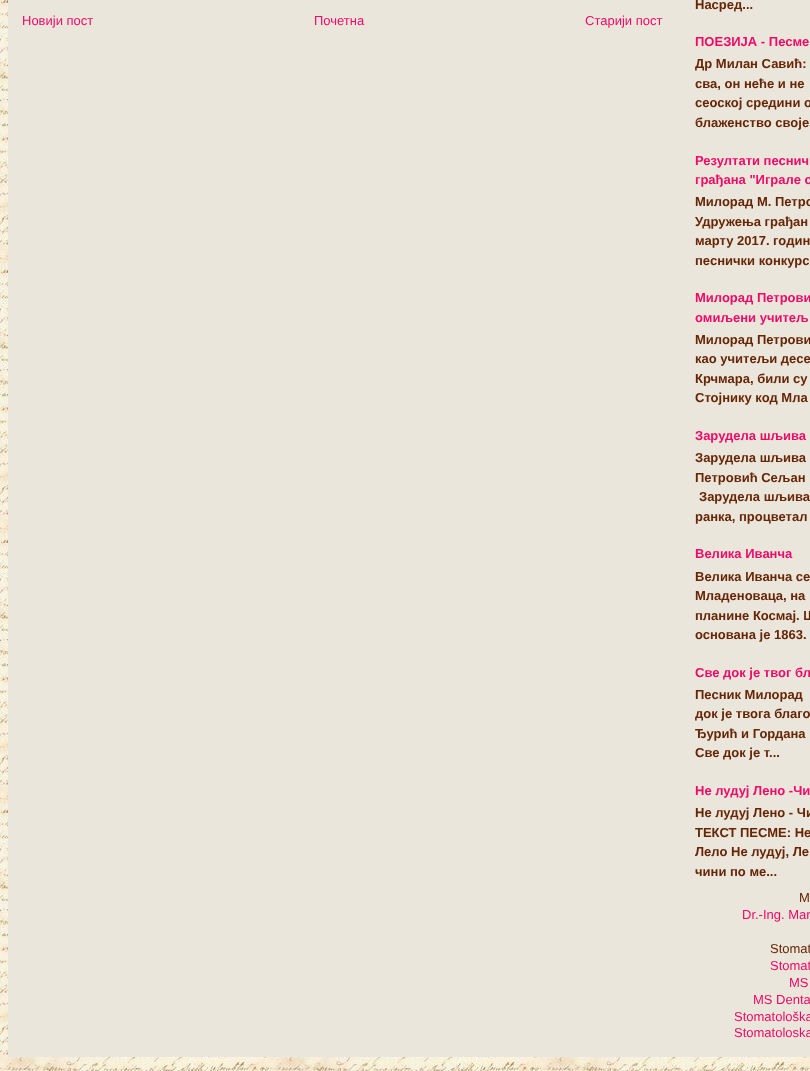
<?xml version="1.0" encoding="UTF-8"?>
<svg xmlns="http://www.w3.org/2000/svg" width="810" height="1071">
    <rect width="100%" height="100%" fill="#FFFFFF"/>
    <image x="0" y="0" width="810" height="1071" href="img_01.png"/>
    <rect x="8" y="0" width="802" height="1057" fill="#EBE6DC"/>
    <text x="22" y="25" font-family="Liberation Sans" font-size="13" fill="#EE0A67">Новији пост</text>
    <text x="314" y="25" font-family="Liberation Sans" font-size="13" fill="#EE0A67">Почетна</text>
    <text x="585" y="25" font-family="Liberation Sans" font-size="13" fill="#EE0A67">Старији пост</text>
    <text x="695" y="9" font-family="Liberation Sans" font-size="13" font-weight="700" fill="#662505">Насред...</text>
    <text x="695" y="46" font-family="Liberation Sans" font-size="13" font-weight="700" fill="#EE0A67">ПОЕЗИЈА - Песме</text>
    <text font-family="Liberation Sans" font-size="13" font-weight="700" fill="#662505">
        <tspan x="695" y="68">Др Милан Савић:</tspan>
        <tspan x="695" y="88">сва, он неће и не</tspan>
        <tspan x="695" y="107">сеоској средини о</tspan>
        <tspan x="695" y="127">блаженство своје</tspan>
    </text>
    <text font-family="Liberation Sans" font-size="13" font-weight="700" fill="#EE0A67">
        <tspan x="695" y="165">Резултати песнич</tspan>
        <tspan x="695" y="184">грађана "Играле с</tspan>
    </text>
    <text font-family="Liberation Sans" font-size="13" font-weight="700" fill="#662505">
        <tspan x="695" y="206">Милорад М. Петро</tspan>
        <tspan x="695" y="226">Удружења грађан</tspan>
        <tspan x="695" y="245">марту 2017. годин</tspan>
        <tspan x="695" y="265">песнички конкурс</tspan>
    </text>
    <text font-family="Liberation Sans" font-size="13" font-weight="700" fill="#EE0A67">
        <tspan x="695" y="302">Милорад Петрови</tspan>
        <tspan x="695" y="322">омиљени учитељ</tspan>
    </text>
    <text font-family="Liberation Sans" font-size="13" font-weight="700" fill="#662505">
        <tspan x="695" y="344">Милорад Петрови</tspan>
        <tspan x="695" y="363">као учитељи десе</tspan>
        <tspan x="695" y="383">Крчмара, били су</tspan>
        <tspan x="695" y="402">Стојнику код Мла</tspan>
    </text>
    <text x="695" y="440" font-family="Liberation Sans" font-size="13" font-weight="700" fill="#EE0A67">Зарудела шљива</text>
    <text font-family="Liberation Sans" font-size="13" font-weight="700" fill="#662505">
        <tspan x="695" y="462">Зарудела шљива</tspan>
        <tspan x="695" y="482">Петровић Сељан</tspan>
    </text>
    <text x="699" y="501" font-family="Liberation Sans" font-size="13" font-weight="700" fill="#662505">Зарудела шљива</text>
    <text x="695" y="521" font-family="Liberation Sans" font-size="13" font-weight="700" fill="#662505">ранка, процветал</text>
    <text x="695" y="558" font-family="Liberation Sans" font-size="13" font-weight="700" fill="#EE0A67">Велика Иванча</text>
    <text font-family="Liberation Sans" font-size="13" font-weight="700" fill="#662505">
        <tspan x="695" y="581">Велика Иванча се</tspan>
        <tspan x="695" y="600">Младеноваца, на</tspan>
        <tspan x="695" y="620">планине Космај. Ш</tspan>
        <tspan x="695" y="639">основана је 1863.</tspan>
    </text>
    <text x="695" y="677" font-family="Liberation Sans" font-size="13" font-weight="700" fill="#EE0A67">Све док је твог бл</text>
    <text font-family="Liberation Sans" font-size="13" font-weight="700" fill="#662505">
        <tspan x="695" y="699">Песник Милорад</tspan>
        <tspan x="695" y="718">док је твога благо</tspan>
        <tspan x="695" y="738">Ђурић и Гордана</tspan>
        <tspan x="695" y="757">Све док је т...</tspan>
    </text>
    <text x="695" y="795" font-family="Liberation Sans" font-size="13" font-weight="700" fill="#EE0A67">Не лудуј Лено -Чи</text>
    <text font-family="Liberation Sans" font-size="13" font-weight="700" fill="#662505">
        <tspan x="695" y="817">Не лудуј Лено - Чи</tspan>
        <tspan x="695" y="837">ТЕКСТ ПЕСМЕ: Не</tspan>
        <tspan x="695" y="856">Лело Не лудуј, Ле</tspan>
        <tspan x="695" y="876">чини по ме...</tspan>
    </text>
    <text x="799" y="902" font-family="Liberation Sans" font-size="13" fill="#662505">M</text>
    <text x="742" y="919" font-family="Liberation Sans" font-size="13" fill="#EE0A67">Dr.-Ing. Mar</text>
    <text x="770" y="953" font-family="Liberation Sans" font-size="13" fill="#662505">Stomat</text>
    <text x="770" y="970" font-family="Liberation Sans" font-size="13" fill="#EE0A67">Stomat</text>
    <text x="789" y="987" font-family="Liberation Sans" font-size="13" fill="#EE0A67">MS</text>
    <text x="753" y="1004" font-family="Liberation Sans" font-size="13" fill="#EE0A67">MS Denta</text>
    <text font-family="Liberation Sans" font-size="13" fill="#EE0A67">
        <tspan x="734" y="1021">Stomatološka</tspan>
        <tspan x="734" y="1037">Stomatoloska</tspan>
    </text>
</svg>
